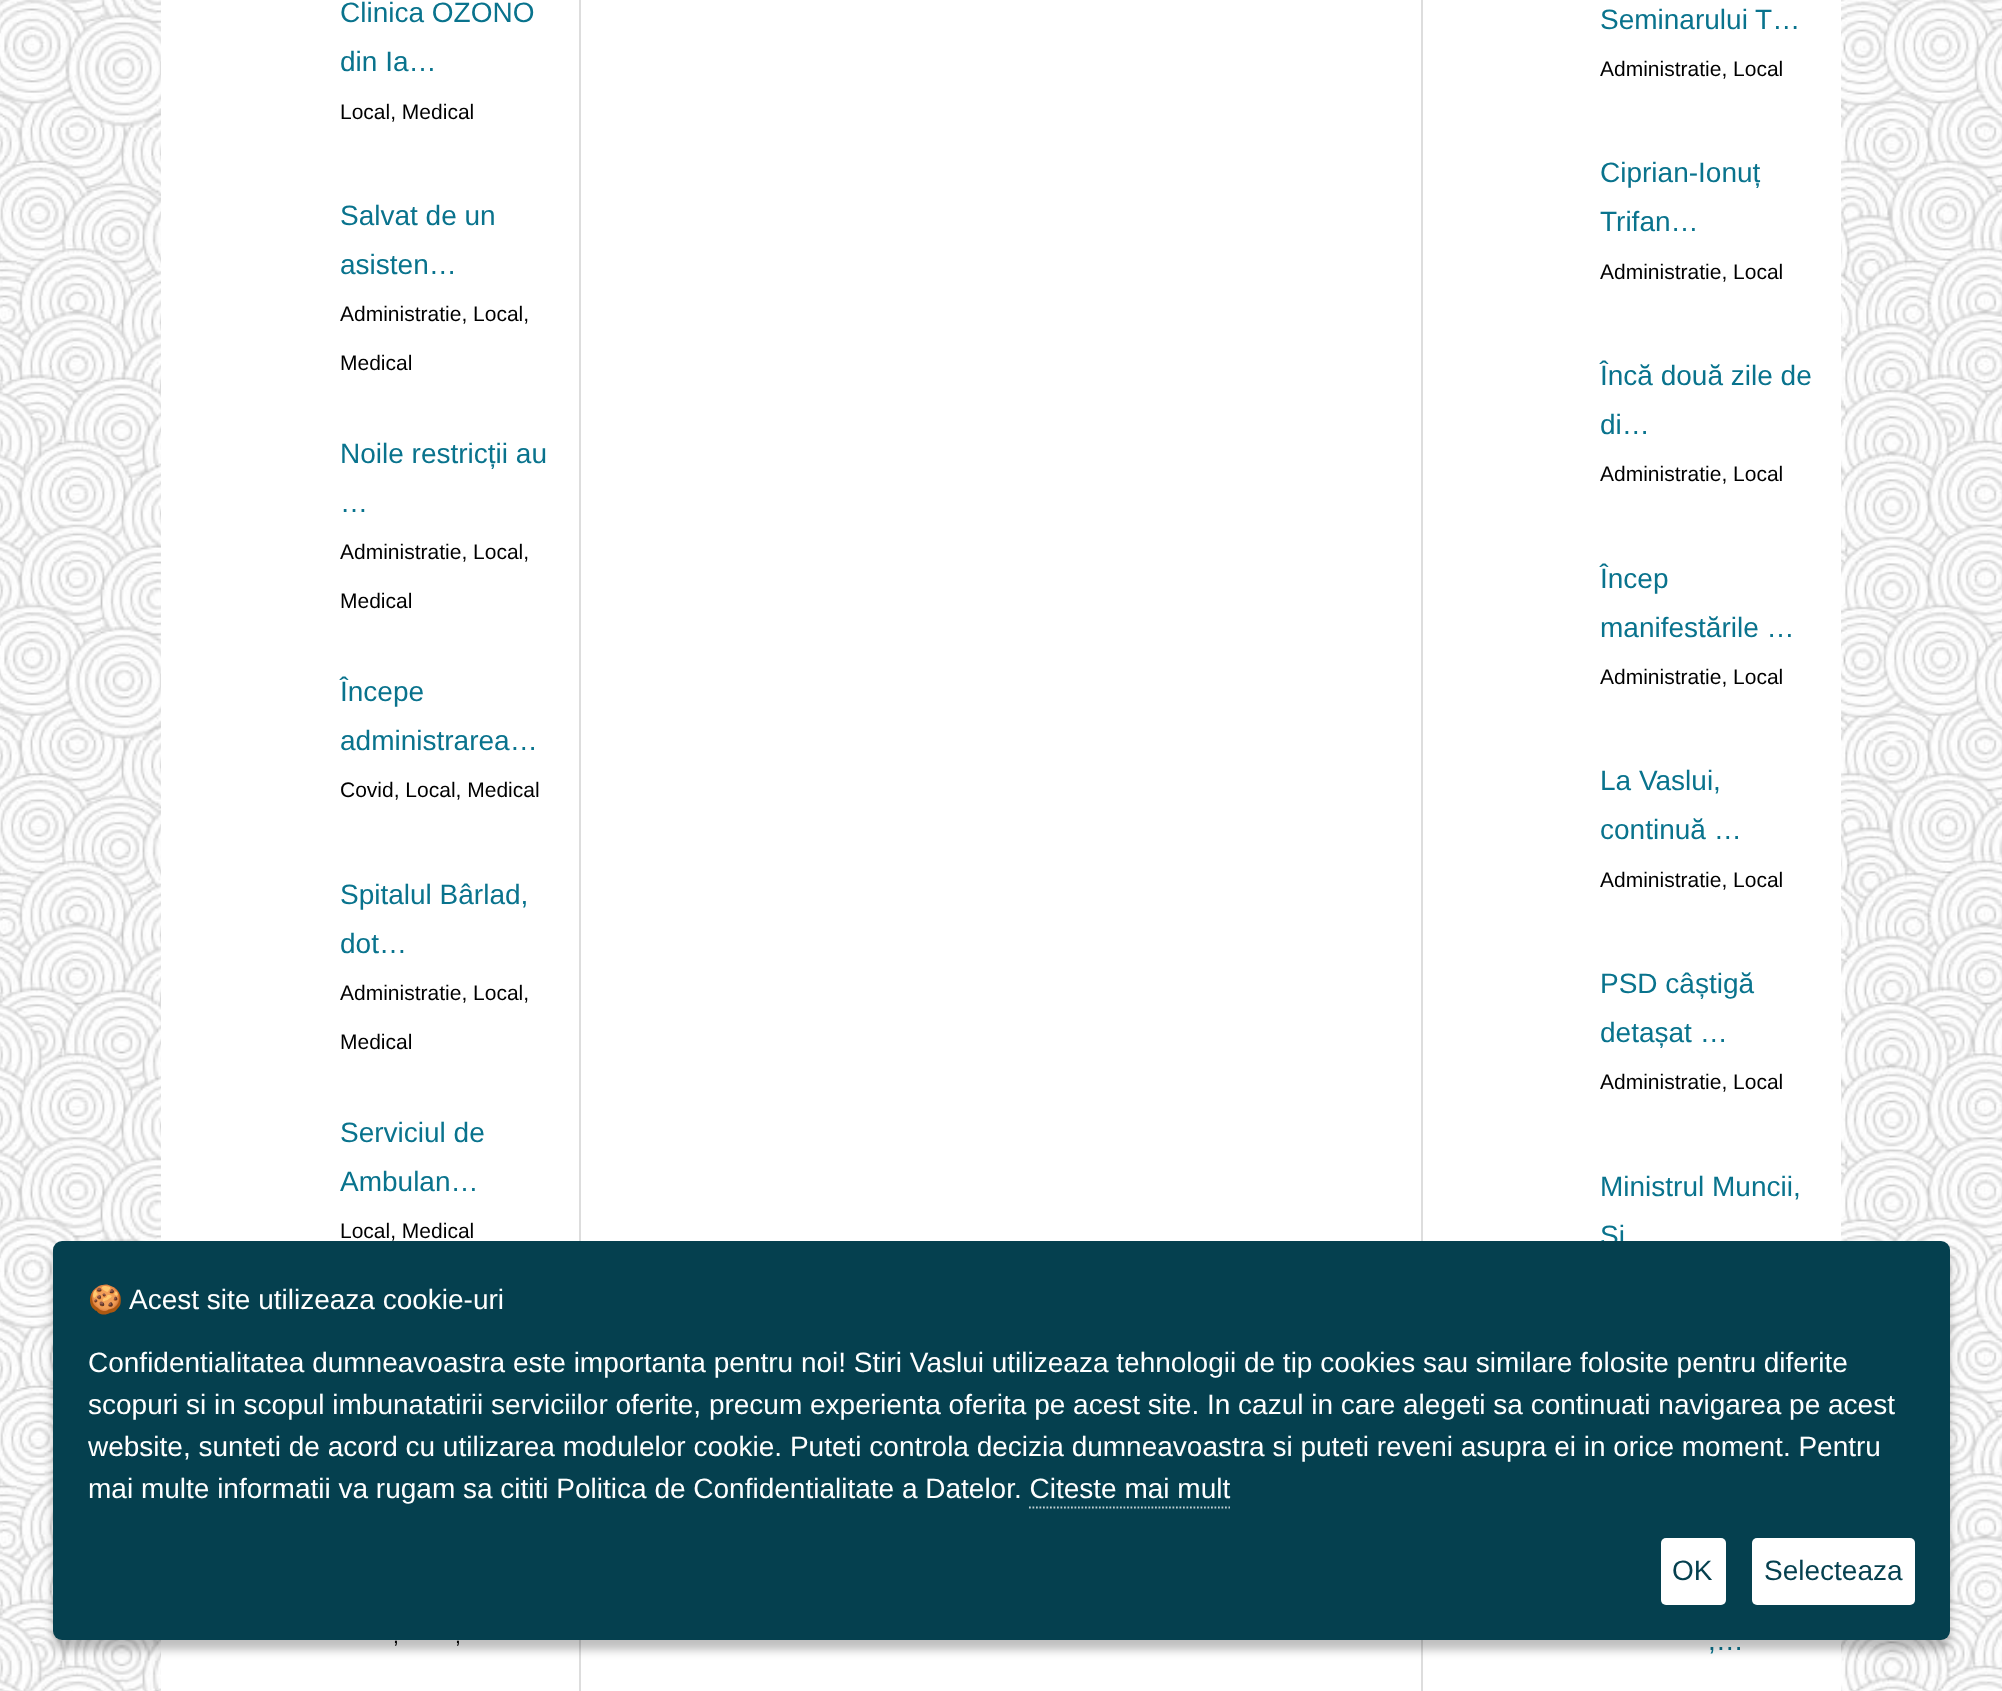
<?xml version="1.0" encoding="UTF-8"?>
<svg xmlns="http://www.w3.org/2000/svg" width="2002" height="1691">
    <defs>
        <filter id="blur1" x="-50%" y="-200%" width="200%" height="500%"><feGaussianBlur stdDeviation="5"/></filter>
    </defs>
    <rect width="100%" height="100%" fill="#FFFFFF"/>
    <image x="0" y="0" width="2002" height="1691" href="img_01.png"/>
    <rect x="161" y="0" width="1680" height="1691" fill="#FFFFFF"/>
    <text font-family="Liberation Sans" font-size="28" fill="#09738D">
        <tspan x="340" y="22">Clinica OZONO</tspan>
        <tspan x="340" y="71">din Ia…</tspan>
    </text>
    <text x="340" y="119" font-family="Liberation Sans" font-size="21" fill="#000000">Local, Medical</text>
    <text font-family="Liberation Sans" font-size="28" fill="#09738D">
        <tspan x="340" y="225">Salvat de un</tspan>
        <tspan x="340" y="274">asisten…</tspan>
    </text>
    <text x="340" y="321" font-family="Liberation Sans" font-size="21" fill="#000000">Administratie, Local,</text>
    <text x="340" y="370" font-family="Liberation Sans" font-size="21" fill="#000000">Medical</text>
    <text font-family="Liberation Sans" font-size="28" fill="#09738D">
        <tspan x="340" y="463">Noile restricții au</tspan>
        <tspan x="340" y="512">…</tspan>
    </text>
    <text x="340" y="559" font-family="Liberation Sans" font-size="21" fill="#000000">Administratie, Local,</text>
    <text x="340" y="608" font-family="Liberation Sans" font-size="21" fill="#000000">Medical</text>
    <text font-family="Liberation Sans" font-size="28" fill="#09738D">
        <tspan x="340" y="701">Începe</tspan>
        <tspan x="340" y="750">administrarea…</tspan>
    </text>
    <text x="340" y="797" font-family="Liberation Sans" font-size="21" fill="#000000">Covid, Local, Medical</text>
    <text font-family="Liberation Sans" font-size="28" fill="#09738D">
        <tspan x="340" y="904">Spitalul Bârlad,</tspan>
        <tspan x="340" y="953">dot…</tspan>
    </text>
    <text x="340" y="1000" font-family="Liberation Sans" font-size="21" fill="#000000">Administratie, Local,</text>
    <text x="340" y="1049" font-family="Liberation Sans" font-size="21" fill="#000000">Medical</text>
    <text font-family="Liberation Sans" font-size="28" fill="#09738D">
        <tspan x="340" y="1142">Serviciul de</tspan>
        <tspan x="340" y="1191">Ambulan…</tspan>
    </text>
    <text x="340" y="1238" font-family="Liberation Sans" font-size="21" fill="#000000">Local, Medical</text>
    <text x="393" y="1643" font-family="Liberation Sans" font-size="21" fill="#000000">,</text>
    <text x="455" y="1643" font-family="Liberation Sans" font-size="21" fill="#000000">,</text>
    <rect x="579" y="0" width="2" height="1691" fill="#DDDDDD"/>
    <rect x="1421" y="0" width="2" height="1691" fill="#DDDDDD"/>
    <text x="1600" y="29" font-family="Liberation Sans" font-size="28" fill="#09738D">Seminarului T…</text>
    <text x="1600" y="76" font-family="Liberation Sans" font-size="21" fill="#000000">Administratie, Local</text>
    <text font-family="Liberation Sans" font-size="28" fill="#09738D">
        <tspan x="1600" y="182">Ciprian-Ionuț</tspan>
        <tspan x="1600" y="231">Trifan…</tspan>
    </text>
    <text x="1600" y="279" font-family="Liberation Sans" font-size="21" fill="#000000">Administratie, Local</text>
    <text font-family="Liberation Sans" font-size="28" fill="#09738D">
        <tspan x="1600" y="385">Încă două zile de</tspan>
        <tspan x="1600" y="434">di…</tspan>
    </text>
    <text x="1600" y="481" font-family="Liberation Sans" font-size="21" fill="#000000">Administratie, Local</text>
    <text font-family="Liberation Sans" font-size="28" fill="#09738D">
        <tspan x="1600" y="588">Încep</tspan>
        <tspan x="1600" y="637">manifestările …</tspan>
    </text>
    <text x="1600" y="684" font-family="Liberation Sans" font-size="21" fill="#000000">Administratie, Local</text>
    <text font-family="Liberation Sans" font-size="28" fill="#09738D">
        <tspan x="1600" y="790">La Vaslui,</tspan>
        <tspan x="1600" y="839">continuă …</tspan>
    </text>
    <text x="1600" y="887" font-family="Liberation Sans" font-size="21" fill="#000000">Administratie, Local</text>
    <text font-family="Liberation Sans" font-size="28" fill="#09738D">
        <tspan x="1600" y="993">PSD câștigă</tspan>
        <tspan x="1600" y="1042">detașat …</tspan>
    </text>
    <text x="1600" y="1089" font-family="Liberation Sans" font-size="21" fill="#000000">Administratie, Local</text>
    <text font-family="Liberation Sans" font-size="28" fill="#09738D">
        <tspan x="1600" y="1196">Ministrul Muncii,</tspan>
        <tspan x="1600" y="1245">Si</tspan>
    </text>
    <text x="1708" y="1650" font-family="Liberation Sans" font-size="28" fill="#09738D">,…</text>
    <rect x="53" y="1251" width="1897" height="399" rx="9" fill="#000000" fill-opacity="0.25" filter="url(#blur1)"/>
    <rect x="53" y="1241" width="1897" height="399" rx="9" fill="#05404F"/>
    <text x="88" y="1309" font-family="Noto Color Emoji" font-size="28" fill="#FFFFFF">🍪</text>
    <text x="129" y="1309" font-family="Liberation Sans" font-size="28" fill="#FFFFFF">Acest site utilizeaza cookie-uri</text>
    <text font-family="Liberation Sans" font-size="28" fill="#FFFFFF">
        <tspan x="88" y="1372">Confidentialitatea dumneavoastra este importanta pentru noi! Stiri Vaslui utilizeaza tehnologii de tip cookies sau similare folosite pentru diferite</tspan>
        <tspan x="88" y="1414">scopuri si in scopul imbunatatirii serviciilor oferite, precum experienta oferita pe acest site. In cazul in care alegeti sa continuati navigarea pe acest</tspan>
        <tspan x="88" y="1456">website, sunteti de acord cu utilizarea modulelor cookie. Puteti controla decizia dumneavoastra si puteti reveni asupra ei in orice moment. Pentru</tspan>
        <tspan x="88" y="1498">mai multe informatii va rugam sa cititi Politica de Confidentialitate a Datelor. Citeste mai mult</tspan>
    </text>
    <path d="M 1029 1507.5 H 1230" fill="none" stroke="#C1CFD3" stroke-width="1.8" stroke-dasharray="1.75 1.75"/>
    <rect x="1661" y="1538" width="65" height="67" rx="5" fill="#FFFFFF"/>
    <text x="1672" y="1580" font-family="Liberation Sans" font-size="28" fill="#05404F">OK</text>
    <rect x="1752" y="1538" width="163" height="67" rx="5" fill="#FFFFFF"/>
    <text x="1764" y="1580" font-family="Liberation Sans" font-size="28" fill="#05404F">Selecteaza</text>
</svg>
